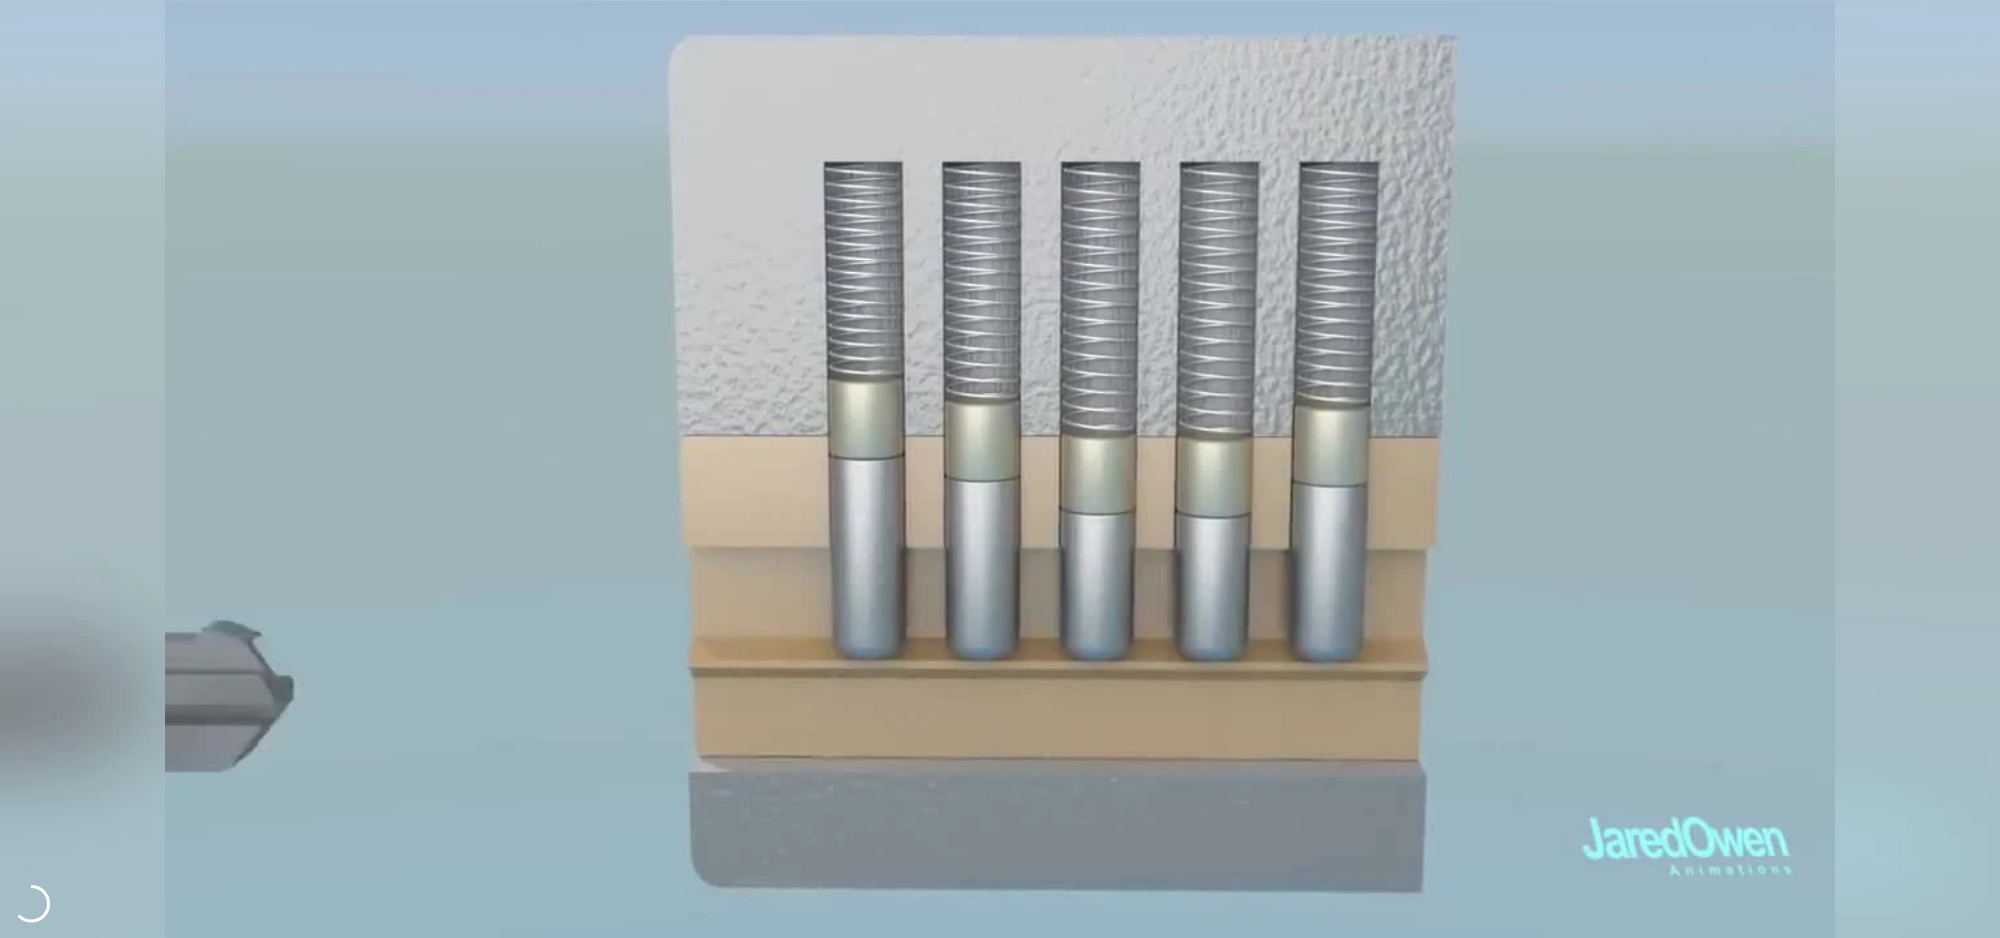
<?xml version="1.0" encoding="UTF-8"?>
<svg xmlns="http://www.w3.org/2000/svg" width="2000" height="938">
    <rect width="100%" height="100%" fill="#FFFFFF"/>
    <image x="0" y="0" width="2000" height="938" href="img_01.png"/>
    <image x="165" y="0" width="1670" height="938" href="img_02.png"/>
    <path d="M 31 886.5 C 41 886.5 48.5 894 48.5 904 C 48.5 913.5 41 921 31 921 C 26.5 921 22 919 18.5 915.5" fill="none" stroke="#FFFFFF" stroke-width="3.1"/>
</svg>
